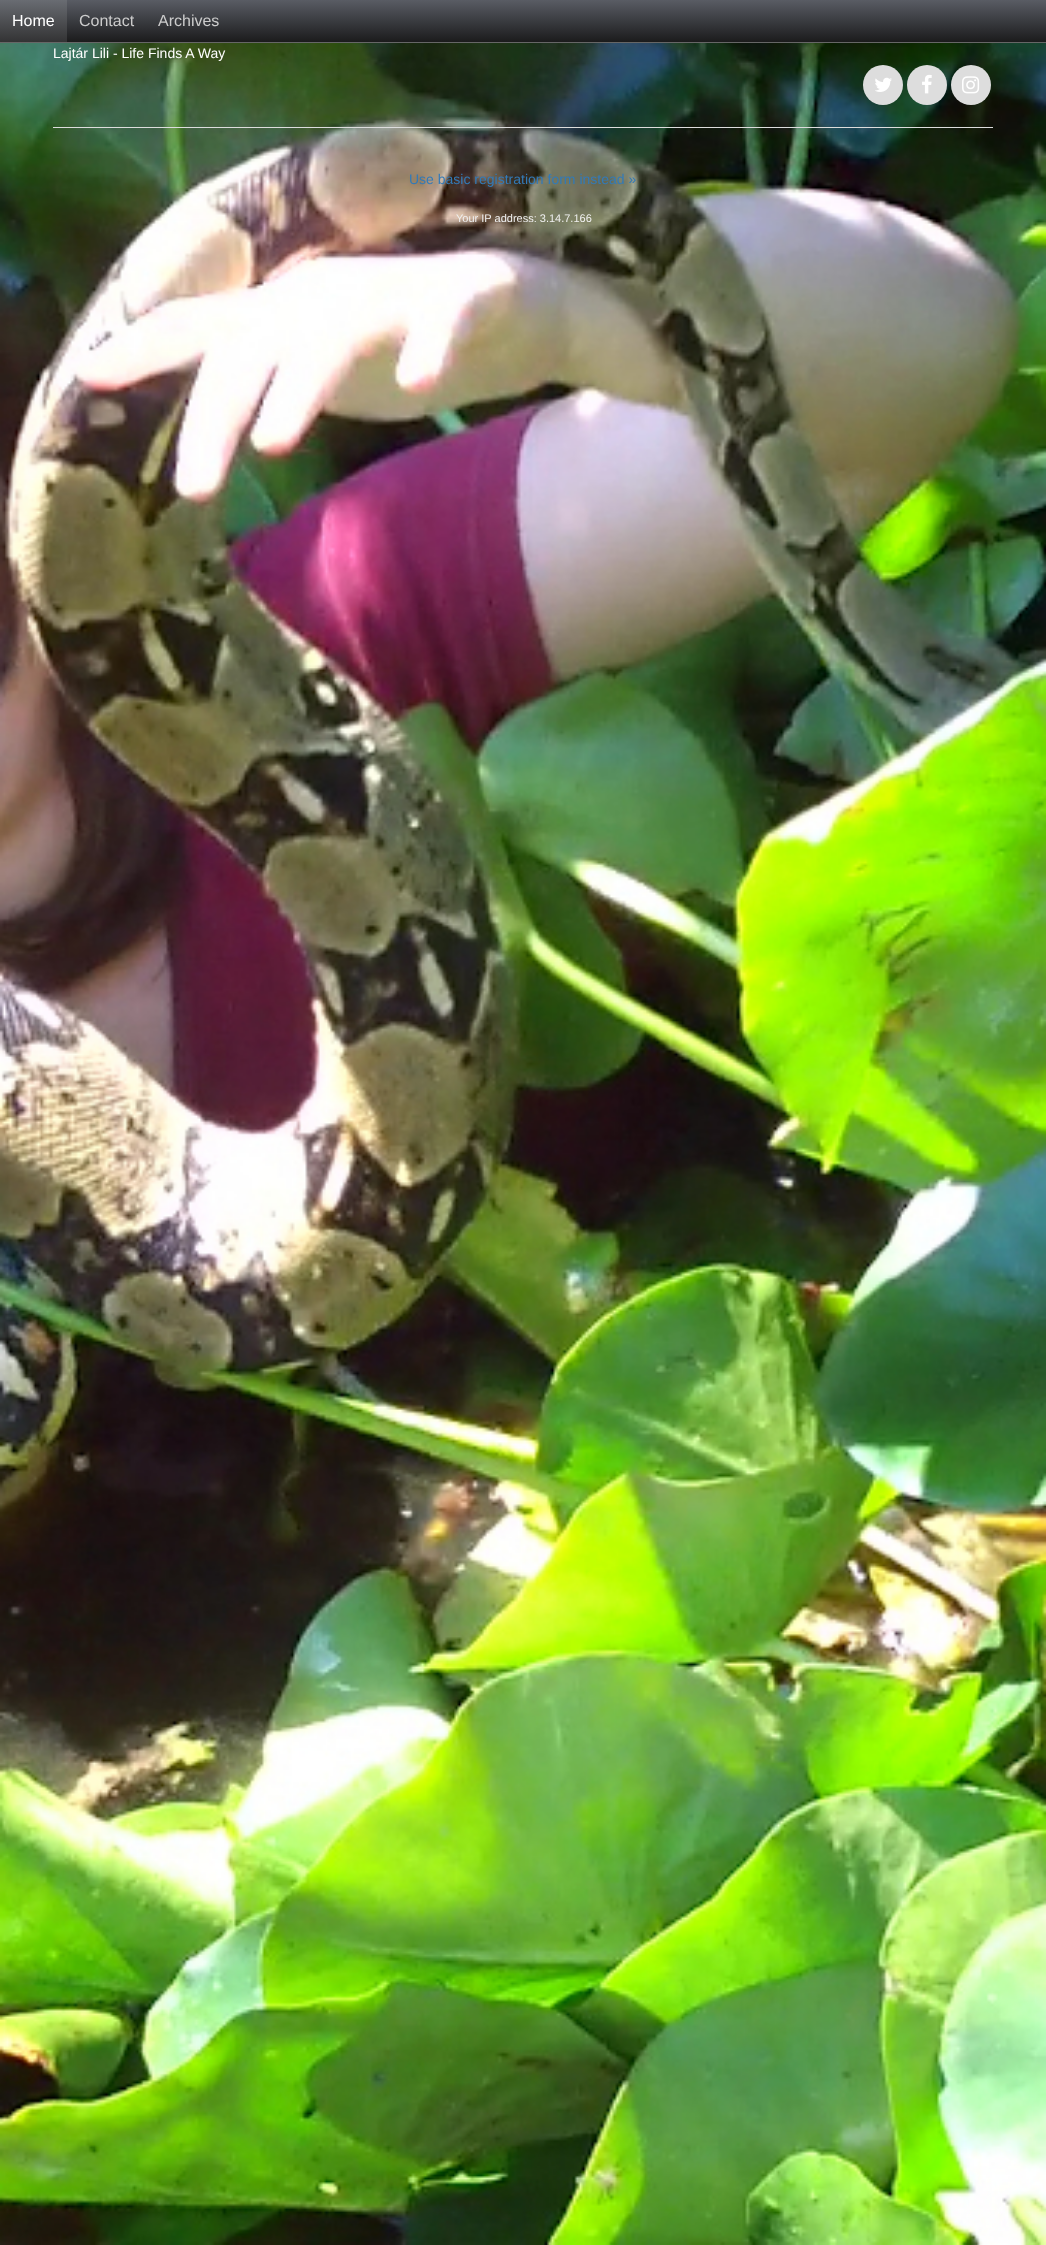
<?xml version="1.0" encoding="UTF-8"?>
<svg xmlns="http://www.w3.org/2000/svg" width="1046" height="2245">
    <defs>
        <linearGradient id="g1" gradientUnits="userSpaceOnUse" x1="523" y1="0" x2="523" y2="42"><stop offset="0" stop-color="#595C64"/><stop offset="1" stop-color="#1B1B1C"/></linearGradient>
        <linearGradient id="g2" gradientUnits="userSpaceOnUse" x1="34" y1="0" x2="34" y2="42"><stop offset="0" stop-color="#696C72"/><stop offset="1" stop-color="#333334"/></linearGradient>
    </defs>
    <rect width="100%" height="100%" fill="#FFFFFF"/>
    <rect x="67" y="0" width="979" height="42" fill="url(#g1)"/>
    <rect x="0" y="42" width="1046" height="1" fill="#666666"/>
    <rect x="0" y="0" width="67" height="42" fill="url(#g2)"/>
    <text x="12" y="26" font-family="Liberation Sans" font-size="16" fill="#FFFFFF">Home</text>
    <text x="79" y="26" font-family="Liberation Sans" font-size="16" fill="#CCCCCC">Contact</text>
    <text x="158" y="26" font-family="Liberation Sans" font-size="16" fill="#CCCCCC">Archives</text>
    <image x="0" y="43" width="1046" height="2202" href="img_01.png"/>
    <text x="53" y="58" font-family="Liberation Sans" font-size="14" fill="#FFFFFF">Lajtár Lili - Life Finds A Way</text>
    <circle cx="883" cy="85" r="20" fill="#DDDDDD"/>
    <image x="875" y="77" width="17" height="15" href="img_02.png"/>
    <circle cx="927" cy="85" r="20" fill="#DDDDDD"/>
    <image x="922" y="74" width="10" height="20" href="img_03.png"/>
    <circle cx="971" cy="85" r="20" fill="#DDDDDD"/>
    <image x="962" y="76" width="18" height="18" href="img_04.png"/>
    <rect x="53" y="127" width="940" height="1" fill="#DDDDDD"/>
    <text x="409" y="184" font-family="Liberation Sans" font-size="14" fill="#337AB7">Use basic registration form instead »</text>
    <text x="456" y="222" font-family="Liberation Sans" font-size="11" fill="#F0F0F0">Your IP address: 3.14.7.166</text>
</svg>
